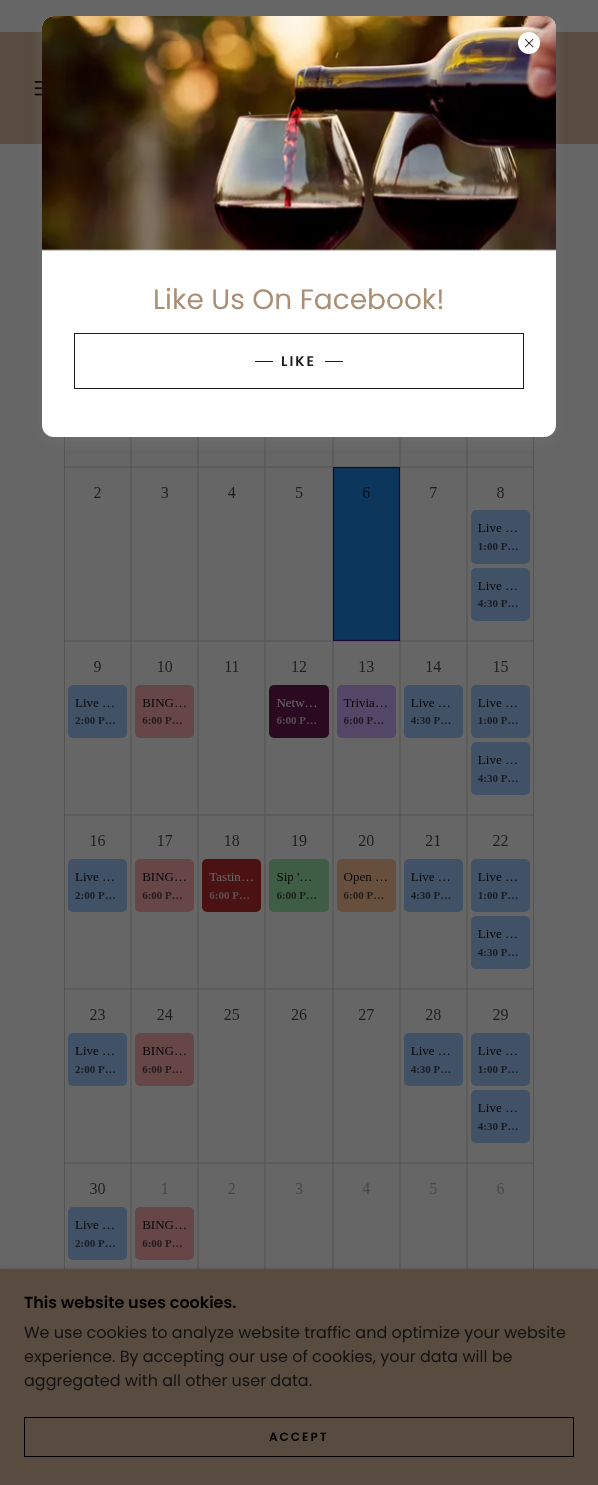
<?xml version="1.0" encoding="UTF-8"?>
<svg xmlns="http://www.w3.org/2000/svg" width="598" height="1485">
    <defs>
        <filter id="blur1" x="-50%" y="-200%" width="200%" height="500%"><feGaussianBlur stdDeviation="6"/></filter>
        <filter id="blur2" x="-50%" y="-200%" width="200%" height="500%"><feGaussianBlur stdDeviation="3"/></filter>
    </defs>
    <rect width="100%" height="100%" fill="#584C41"/>
    <rect x="0" y="0" width="598" height="32" fill="#666666"/>
    <image x="34" y="81" width="8" height="15" href="img_01.png"/>
    <rect x="0" y="144" width="598" height="1125" fill="#666666"/>
    <image x="64" y="437" width="470" height="832" href="img_02.png"/>
    <rect x="42" y="20" width="514" height="421" rx="12" fill="#757575" fill-opacity="0.4" filter="url(#blur1)"/>
    <rect x="42" y="16" width="514" height="421" rx="12" fill="#FFFFFF"/>
    <image x="42" y="16" width="514" height="235" href="img_04.png"/>
    <circle cx="529" cy="43" r="11" fill="#FFFFFF"/>
    <image x="525" y="39" width="9" height="9" href="img_03.png"/>
    <text x="153" y="309" font-family="Poppins" font-size="28" fill="#AB8F74">Like Us On Facebook!</text>
    <rect x="74.5" y="333.5" width="449" height="55" fill="none" stroke="#1B1B1B"/>
    <rect x="255" y="361" width="18" height="1" fill="#1B1B1B"/>
    <text x="281" y="366" font-family="Poppins" font-size="14" font-weight="600" letter-spacing="2" fill="#1B1B1B">LIKE</text>
    <rect x="325" y="361" width="18" height="1" fill="#1B1B1B"/>
    <rect x="0" y="1271" width="598" height="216" fill="#000000" fill-opacity="0.3" filter="url(#blur2)"/>
    <rect x="0" y="1269" width="598" height="216" fill="#584C41"/>
    <text x="24" y="1308" font-family="Poppins" font-size="16" font-weight="600" fill="#000000">This website uses cookies.</text>
    <text font-family="Poppins" font-size="16" fill="#131212">
        <tspan x="24" y="1338">We use cookies to analyze website traffic and optimize your website</tspan>
        <tspan x="24" y="1362">experience. By accepting our use of cookies, your data will be</tspan>
        <tspan x="24" y="1386">aggregated with all other user data.</tspan>
    </text>
    <rect x="24.5" y="1417.5" width="549" height="39" fill="none" stroke="#000000"/>
    <text x="269" y="1441" font-family="Poppins" font-size="12" font-weight="600" letter-spacing="2" fill="#000000">ACCEPT</text>
</svg>
